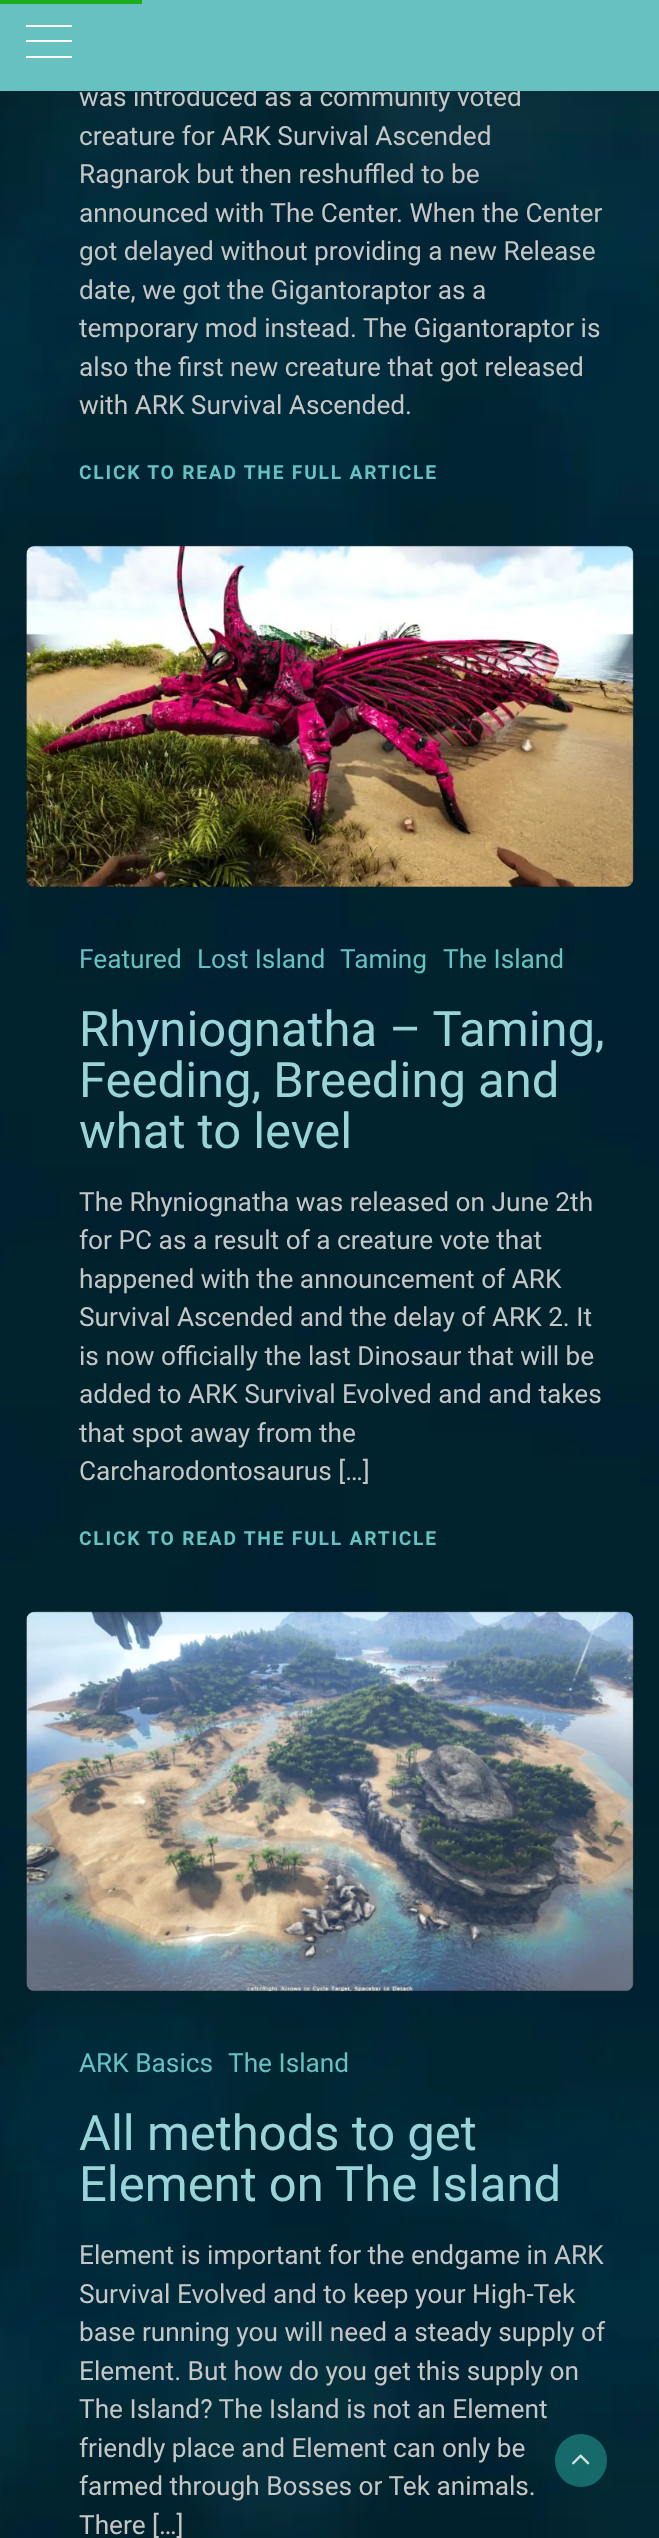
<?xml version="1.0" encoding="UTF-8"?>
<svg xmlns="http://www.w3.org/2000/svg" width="659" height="2538">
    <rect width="100%" height="100%" fill="#FFFFFF"/>
    <image x="0" y="91" width="659" height="2447" href="img_01.png"/>
    <text x="79" y="106" font-family="Roboto" font-size="26.25" fill="#C6C6C6">was introduced as a community voted</text>
    <rect x="0" y="0" width="659" height="91" fill="#66C1C0"/>
    <rect x="26" y="25" width="46" height="2" fill="#FFFFFF"/>
    <rect x="26" y="40" width="46" height="2" fill="#FFFFFF"/>
    <rect x="26" y="56" width="46" height="2" fill="#FFFFFF"/>
    <rect x="0" y="0" width="142" height="4" fill="#1BAD1B"/>
    <text font-family="Roboto" font-size="26.25" fill="#C6C6C6">
        <tspan x="79" y="145">creature for ARK Survival Ascended</tspan>
        <tspan x="79" y="183">Ragnarok but then reshuffled to be</tspan>
        <tspan x="79" y="222">announced with The Center. When the Center</tspan>
        <tspan x="79" y="260">got delayed without providing a new Release</tspan>
        <tspan x="79" y="299">date, we got the Gigantoraptor as a</tspan>
        <tspan x="79" y="337">temporary mod instead. The Gigantoraptor is</tspan>
        <tspan x="79" y="376">also the first new creature that got released</tspan>
        <tspan x="79" y="414">with ARK Survival Ascended.</tspan>
    </text>
    <text x="79" y="479" font-family="Roboto" font-size="19.25" font-weight="700" letter-spacing="1.75" fill="#66C1C0">CLICK TO READ THE FULL ARTICLE</text>
    <image x="26" y="545" width="608" height="342" href="img_02.png"/>
    <text x="79" y="968" font-family="Roboto" font-size="26.25" fill="#66C1C0">Featured</text>
    <text x="197" y="968" font-family="Roboto" font-size="26.25" fill="#66C1C0">Lost Island</text>
    <text x="340" y="968" font-family="Roboto" font-size="26.25" fill="#66C1C0">Taming</text>
    <text x="443" y="968" font-family="Roboto" font-size="26.25" fill="#66C1C0">The Island</text>
    <text font-family="Roboto" font-size="49" fill="#99D4D8">
        <tspan x="79" y="1046">Rhyniognatha – Taming,</tspan>
        <tspan x="79" y="1097">Feeding, Breeding and</tspan>
        <tspan x="79" y="1148">what to level</tspan>
    </text>
    <text font-family="Roboto" font-size="26.25" fill="#C6C6C6">
        <tspan x="79" y="1211">The Rhyniognatha was released on June 2th</tspan>
        <tspan x="79" y="1249">for PC as a result of a creature vote that</tspan>
        <tspan x="79" y="1288">happened with the announcement of ARK</tspan>
        <tspan x="79" y="1326">Survival Ascended and the delay of ARK 2. It</tspan>
        <tspan x="79" y="1365">is now officially the last Dinosaur that will be</tspan>
        <tspan x="79" y="1403">added to ARK Survival Evolved and and takes</tspan>
        <tspan x="79" y="1442">that spot away from the</tspan>
        <tspan x="79" y="1480">Carcharodontosaurus […]</tspan>
    </text>
    <text x="79" y="1545" font-family="Roboto" font-size="19.25" font-weight="700" letter-spacing="1.75" fill="#66C1C0">CLICK TO READ THE FULL ARTICLE</text>
    <image x="26" y="1611" width="608" height="381" href="img_03.png"/>
    <text x="79" y="2072" font-family="Roboto" font-size="26.25" fill="#66C1C0">ARK Basics</text>
    <text x="228" y="2072" font-family="Roboto" font-size="26.25" fill="#66C1C0">The Island</text>
    <text font-family="Roboto" font-size="49" fill="#99D4D8">
        <tspan x="79" y="2150">All methods to get</tspan>
        <tspan x="79" y="2201">Element on The Island</tspan>
    </text>
    <text font-family="Roboto" font-size="26.25" fill="#C6C6C6">
        <tspan x="79" y="2264">Element is important for the endgame in ARK</tspan>
        <tspan x="79" y="2303">Survival Evolved and to keep your High-Tek</tspan>
        <tspan x="79" y="2341">base running you will need a steady supply of</tspan>
        <tspan x="79" y="2380">Element. But how do you get this supply on</tspan>
        <tspan x="79" y="2418">The Island? The Island is not an Element</tspan>
        <tspan x="79" y="2457">friendly place and Element can only be</tspan>
        <tspan x="79" y="2495">farmed through Bosses or Tek animals.</tspan>
        <tspan x="79" y="2534">There […]</tspan>
    </text>
    <rect x="555" y="2434" width="52" height="53" rx="26" fill="#1C7A77" fill-opacity="0.8"/>
    <image x="571" y="2454" width="19" height="11" href="img_04.png"/>
</svg>
